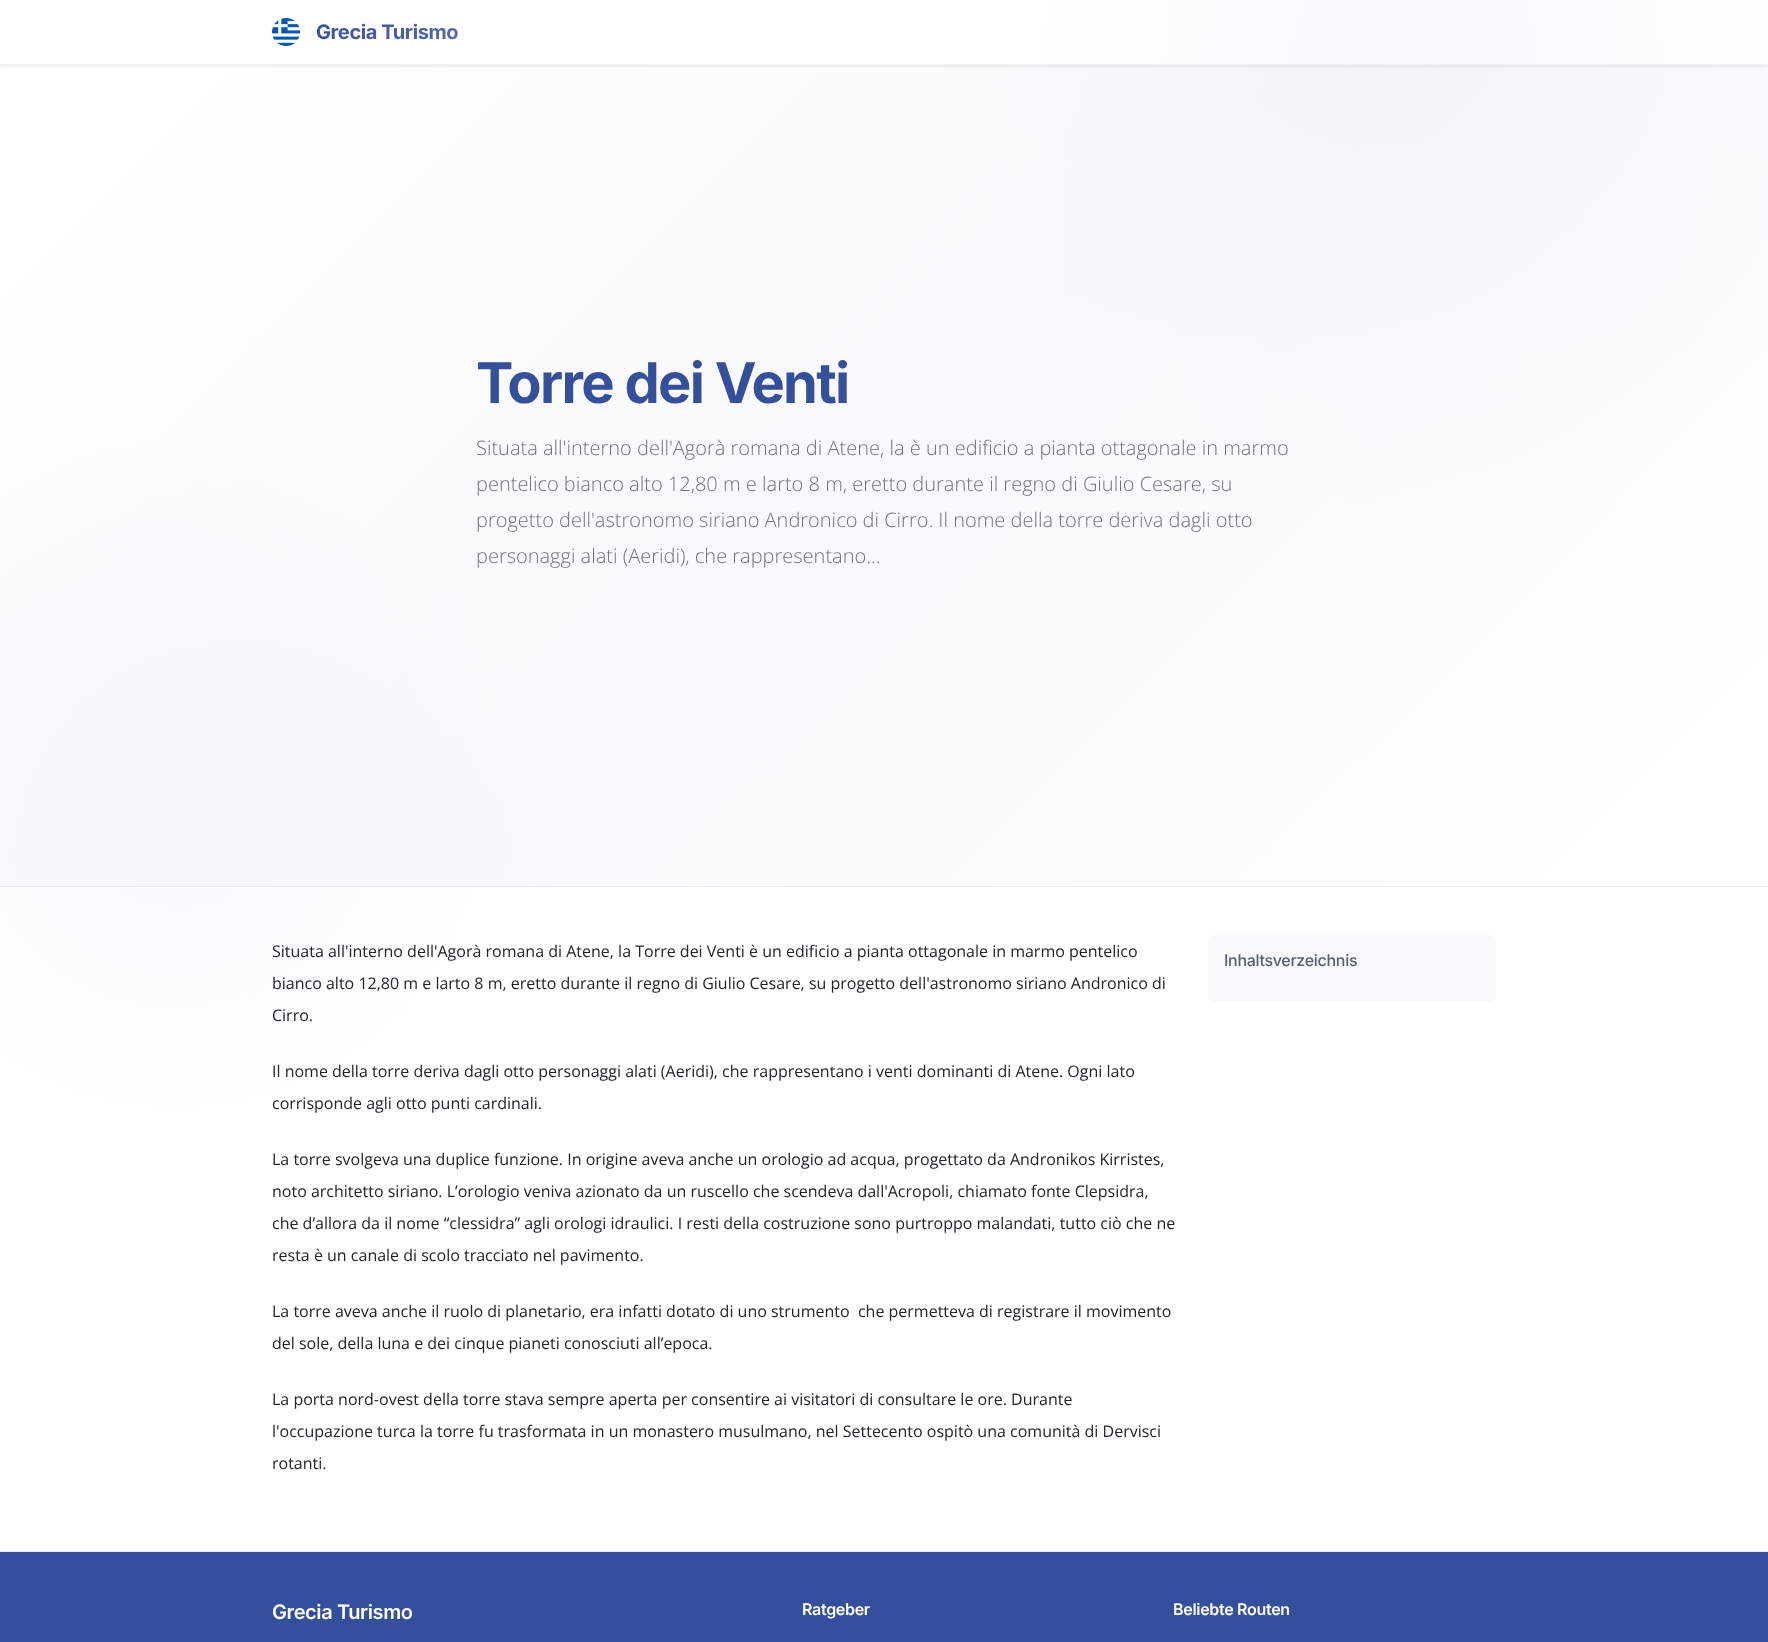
<?xml version="1.0" encoding="UTF-8"?>
<svg xmlns="http://www.w3.org/2000/svg" width="1768" height="1642">
    <defs>
        <linearGradient id="g1" gradientUnits="userSpaceOnUse" x1="237" y1="-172" x2="1531" y2="1123"><stop offset="0" stop-color="#FFFFFF"/><stop offset="0.5" stop-color="#F8F9FA"/><stop offset="1" stop-color="#FFFFFF"/></linearGradient>
        <radialGradient id="g2" gradientUnits="userSpaceOnUse" cx="1414" cy="65" r="671"><stop offset="0" stop-color="#34509C" stop-opacity="0.03"/><stop offset="0.7" stop-color="#34509C" stop-opacity="0"/></radialGradient>
        <clipPath id="clip1"><rect x="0" y="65" width="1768" height="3"/></clipPath>
        <filter id="blur1" x="-50%" y="-200%" width="200%" height="500%"><feGaussianBlur stdDeviation="2"/></filter>
        <linearGradient id="g3" gradientUnits="userSpaceOnUse" x1="344" y1="-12" x2="431" y2="76"><stop offset="0" stop-color="#34509C"/><stop offset="1" stop-color="#5668B3"/></linearGradient>
        <radialGradient id="g4" gradientUnits="userSpaceOnUse" cx="177" cy="804" r="551"><stop offset="0" stop-color="#34509C" stop-opacity="0.03"/><stop offset="0.7" stop-color="#34509C" stop-opacity="0"/></radialGradient>
    </defs>
    <rect width="100%" height="100%" fill="#FFFFFF"/>
    <rect x="0" y="65" width="1768" height="821" fill="url(#g1)"/>
    <path d="M 796 -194 L 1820 -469 L 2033 324 L 1008 599 Z" fill="url(#g2)"/>
    <g clip-path="url(#clip1)">
        <rect x="0" y="2" width="1768" height="65" fill="#000000" fill-opacity="0.07" filter="url(#blur1)"/>
    </g>
    <rect x="0" y="64" width="1768" height="1" fill="#F2F2F2"/>
    <image x="272" y="18" width="28" height="28" href="img_01.png"/>
    <text x="316" y="39" font-family="Inter" font-size="20" font-weight="700" letter-spacing="-0.4" fill="url(#g3)">Grecia Turismo</text>
    <path d="M -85 319 L 716 693 L 439 1288 L -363 915 Z" fill="url(#g4)"/>
    <text x="476" y="403" font-family="Inter" font-size="56" font-weight="700" letter-spacing="-1.7" fill="#34509C">Torre dei Venti</text>
    <text font-family="Open Sans" font-size="20" font-weight="300" fill="#6C757D">
        <tspan x="476" y="455">Situata all'interno dell'Agorà romana di Atene, la è un edificio a pianta ottagonale in marmo</tspan>
        <tspan x="476" y="491">pentelico bianco alto 12,80 m e larto 8 m, eretto durante il regno di Giulio Cesare, su</tspan>
        <tspan x="476" y="527">progetto dell'astronomo siriano Andronico di Cirro. Il nome della torre deriva dagli otto</tspan>
        <tspan x="476" y="563">personaggi alati (Aeridi), che rappresentano...</tspan>
    </text>
    <rect x="0" y="886" width="1768" height="1" fill="#E9ECEF"/>
    <text x="272" y="957" font-family="Open Sans" font-size="16" fill="#212529">Situata all'interno dell'Agorà romana di Atene, la Torre dei Venti è un edificio a pianta ottagonale in marmo pentelico</text>
    <text x="272" y="989" font-family="Open Sans" font-size="16" fill="#212529">bianco alto 12,80 m e larto 8 m, eretto durante il regno di Giulio Cesare, su progetto dell'astronomo siriano Andronico di</text>
    <text x="272" y="1021" font-family="Open Sans" font-size="16" fill="#212529">Cirro.</text>
    <text x="272" y="1077" font-family="Open Sans" font-size="16" fill="#212529">Il nome della torre deriva dagli otto personaggi alati (Aeridi), che rappresentano i venti dominanti di Atene. Ogni lato</text>
    <text x="272" y="1109" font-family="Open Sans" font-size="16" fill="#212529">corrisponde agli otto punti cardinali.</text>
    <text x="272" y="1165" font-family="Open Sans" font-size="16" fill="#212529">La torre svolgeva una duplice funzione. In origine aveva anche un orologio ad acqua, progettato da Andronikos Kirristes,</text>
    <text x="272" y="1197" font-family="Open Sans" font-size="16" fill="#212529">noto architetto siriano. L’orologio veniva azionato da un ruscello che scendeva dall'Acropoli, chiamato fonte Clepsidra,</text>
    <text x="272" y="1229" font-family="Open Sans" font-size="16" fill="#212529">che d’allora da il nome “clessidra” agli orologi idraulici. I resti della costruzione sono purtroppo malandati, tutto ciò che ne</text>
    <text x="272" y="1261" font-family="Open Sans" font-size="16" fill="#212529">resta è un canale di scolo tracciato nel pavimento.</text>
    <text x="272" y="1317" font-family="Open Sans" font-size="16" fill="#212529" xml:space="preserve">La torre aveva anche il ruolo di planetario, era infatti dotato di uno strumento  che permetteva di registrare il movimento</text>
    <text x="272" y="1349" font-family="Open Sans" font-size="16" fill="#212529">del sole, della luna e dei cinque pianeti conosciuti all’epoca.</text>
    <text x="272" y="1405" font-family="Open Sans" font-size="16" fill="#212529">La porta nord-ovest della torre stava sempre aperta per consentire ai visitatori di consultare le ore. Durante</text>
    <text x="272" y="1437" font-family="Open Sans" font-size="16" fill="#212529">l'occupazione turca la torre fu trasformata in un monastero musulmano, nel Settecento ospitò una comunità di Dervisci</text>
    <text x="272" y="1469" font-family="Open Sans" font-size="16" fill="#212529">rotanti.</text>
    <rect x="1208" y="935" width="288" height="67" rx="6" fill="#F8F9FA"/>
    <text x="1224" y="966" font-family="Inter" font-size="16" font-weight="500" letter-spacing="-0.3" fill="#566174">Inhaltsverzeichnis</text>
    <rect x="0" y="1552" width="1768" height="90" fill="#34509C"/>
    <rect x="0" y="1551" width="1768" height="1" fill="#E9ECEF"/>
    <text x="272" y="1619" font-family="Inter" font-size="20" font-weight="600" letter-spacing="-0.4" fill="#FFFFFF">Grecia Turismo</text>
    <text x="802" y="1615" font-family="Inter" font-size="16" font-weight="600" letter-spacing="-0.3" fill="#FFFFFF">Ratgeber</text>
    <text x="1173" y="1615" font-family="Inter" font-size="16" font-weight="600" letter-spacing="-0.3" fill="#FFFFFF">Beliebte Routen</text>
</svg>
